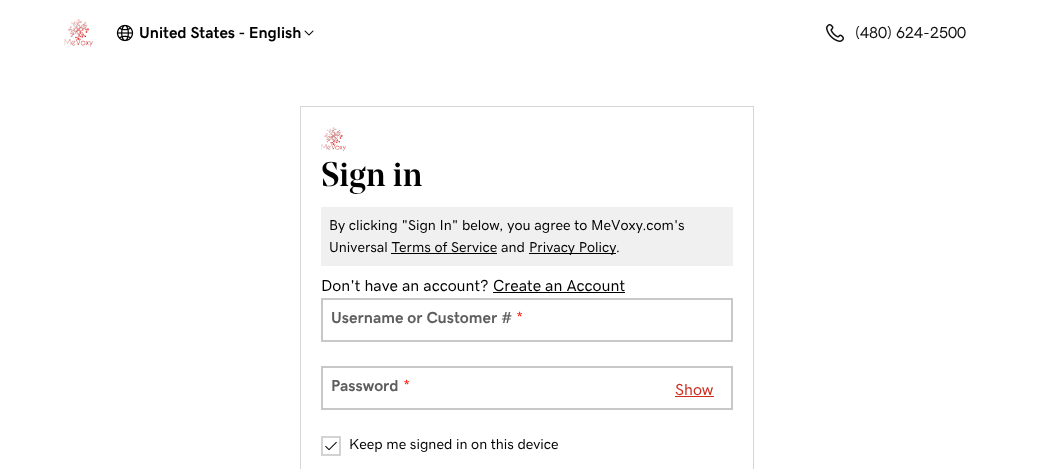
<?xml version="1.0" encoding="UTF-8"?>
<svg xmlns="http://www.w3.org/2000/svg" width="1054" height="469">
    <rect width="100%" height="100%" fill="#FFFFFF"/>
    <image x="64" y="19" width="29" height="28" href="img_01.png"/>
    <image x="116" y="24" width="18" height="18" href="img_02.png"/>
    <text x="139" y="38" font-family="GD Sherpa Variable" font-size="16" font-weight="700" fill="#000000">United States - English</text>
    <image x="304" y="30" width="10" height="6" href="img_03.png"/>
    <image x="826" y="24" width="18" height="18" href="img_04.png"/>
    <text x="855" y="38" font-family="GD Sherpa Variable" font-size="16" font-weight="500" fill="#111111">(480) 624-2500</text>
    <rect x="300.5" y="106.5" width="453" height="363" fill="none" stroke="#D6D6D6"/>
    <image x="321" y="127" width="25" height="24" href="img_05.png"/>
    <text x="321" y="186" font-family="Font" font-size="32" font-weight="500" fill="#000000">Sign in</text>
    <rect x="321" y="207" width="412" height="59" fill="#F0F0F0"/>
    <text font-family="GD Sherpa Variable" font-size="14.4" font-weight="500" fill="#000000">
        <tspan x="329" y="230">By clicking "Sign In" below, you agree to MeVoxy.com's</tspan>
        <tspan x="329" y="252">Universal Terms of Service and</tspan>
    </text>
    <rect x="529" y="253" width="87" height="1" fill="#000000"/>
    <text x="529" y="252" font-family="GD Sherpa Variable" font-size="14.4" font-weight="500" fill="#000000">Privacy Policy.</text>
    <rect x="391" y="253" width="106" height="1" fill="#000000"/>
    <text x="321" y="291" font-family="GD Sherpa Variable" font-size="16" font-weight="500" fill="#000000">Don't have an account?</text>
    <text x="493" y="291" font-family="GD Sherpa Variable" font-size="16" font-weight="500" fill="#000000">Create an Account</text>
    <rect x="493" y="292" width="132" height="1" fill="#000000"/>
    <rect x="322" y="299" width="410" height="42" fill="none" stroke="#C8C8C8" stroke-width="2"/>
    <text x="331" y="323" font-family="GD Sherpa Variable" font-size="16" font-weight="700" fill="#5E5E5E">Username or Customer #</text>
    <text x="516" y="323" font-family="GD Sherpa Variable" font-size="16" font-weight="500" fill="#FF1208">*</text>
    <rect x="322" y="367" width="410" height="42" fill="none" stroke="#C8C8C8" stroke-width="2"/>
    <text x="331" y="391" font-family="GD Sherpa Variable" font-size="16" font-weight="700" fill="#5E5E5E">Password</text>
    <text x="403" y="391" font-family="GD Sherpa Variable" font-size="16" font-weight="500" fill="#FF1208">*</text>
    <text x="675" y="395" font-family="GD Sherpa Variable" font-size="16" font-weight="500" fill="#CE2B1E">Show</text>
    <rect x="675" y="396" width="39" height="1" fill="#CE2B1E"/>
    <rect x="322" y="437" width="18" height="18" fill="none" stroke="#D3D3D3" stroke-width="2"/>
    <image x="325" y="441" width="12" height="10" href="img_06.png"/>
    <text x="349" y="449" font-family="GD Sherpa Variable" font-size="14.4" font-weight="500" fill="#000000">Keep me signed in on this device</text>
</svg>
